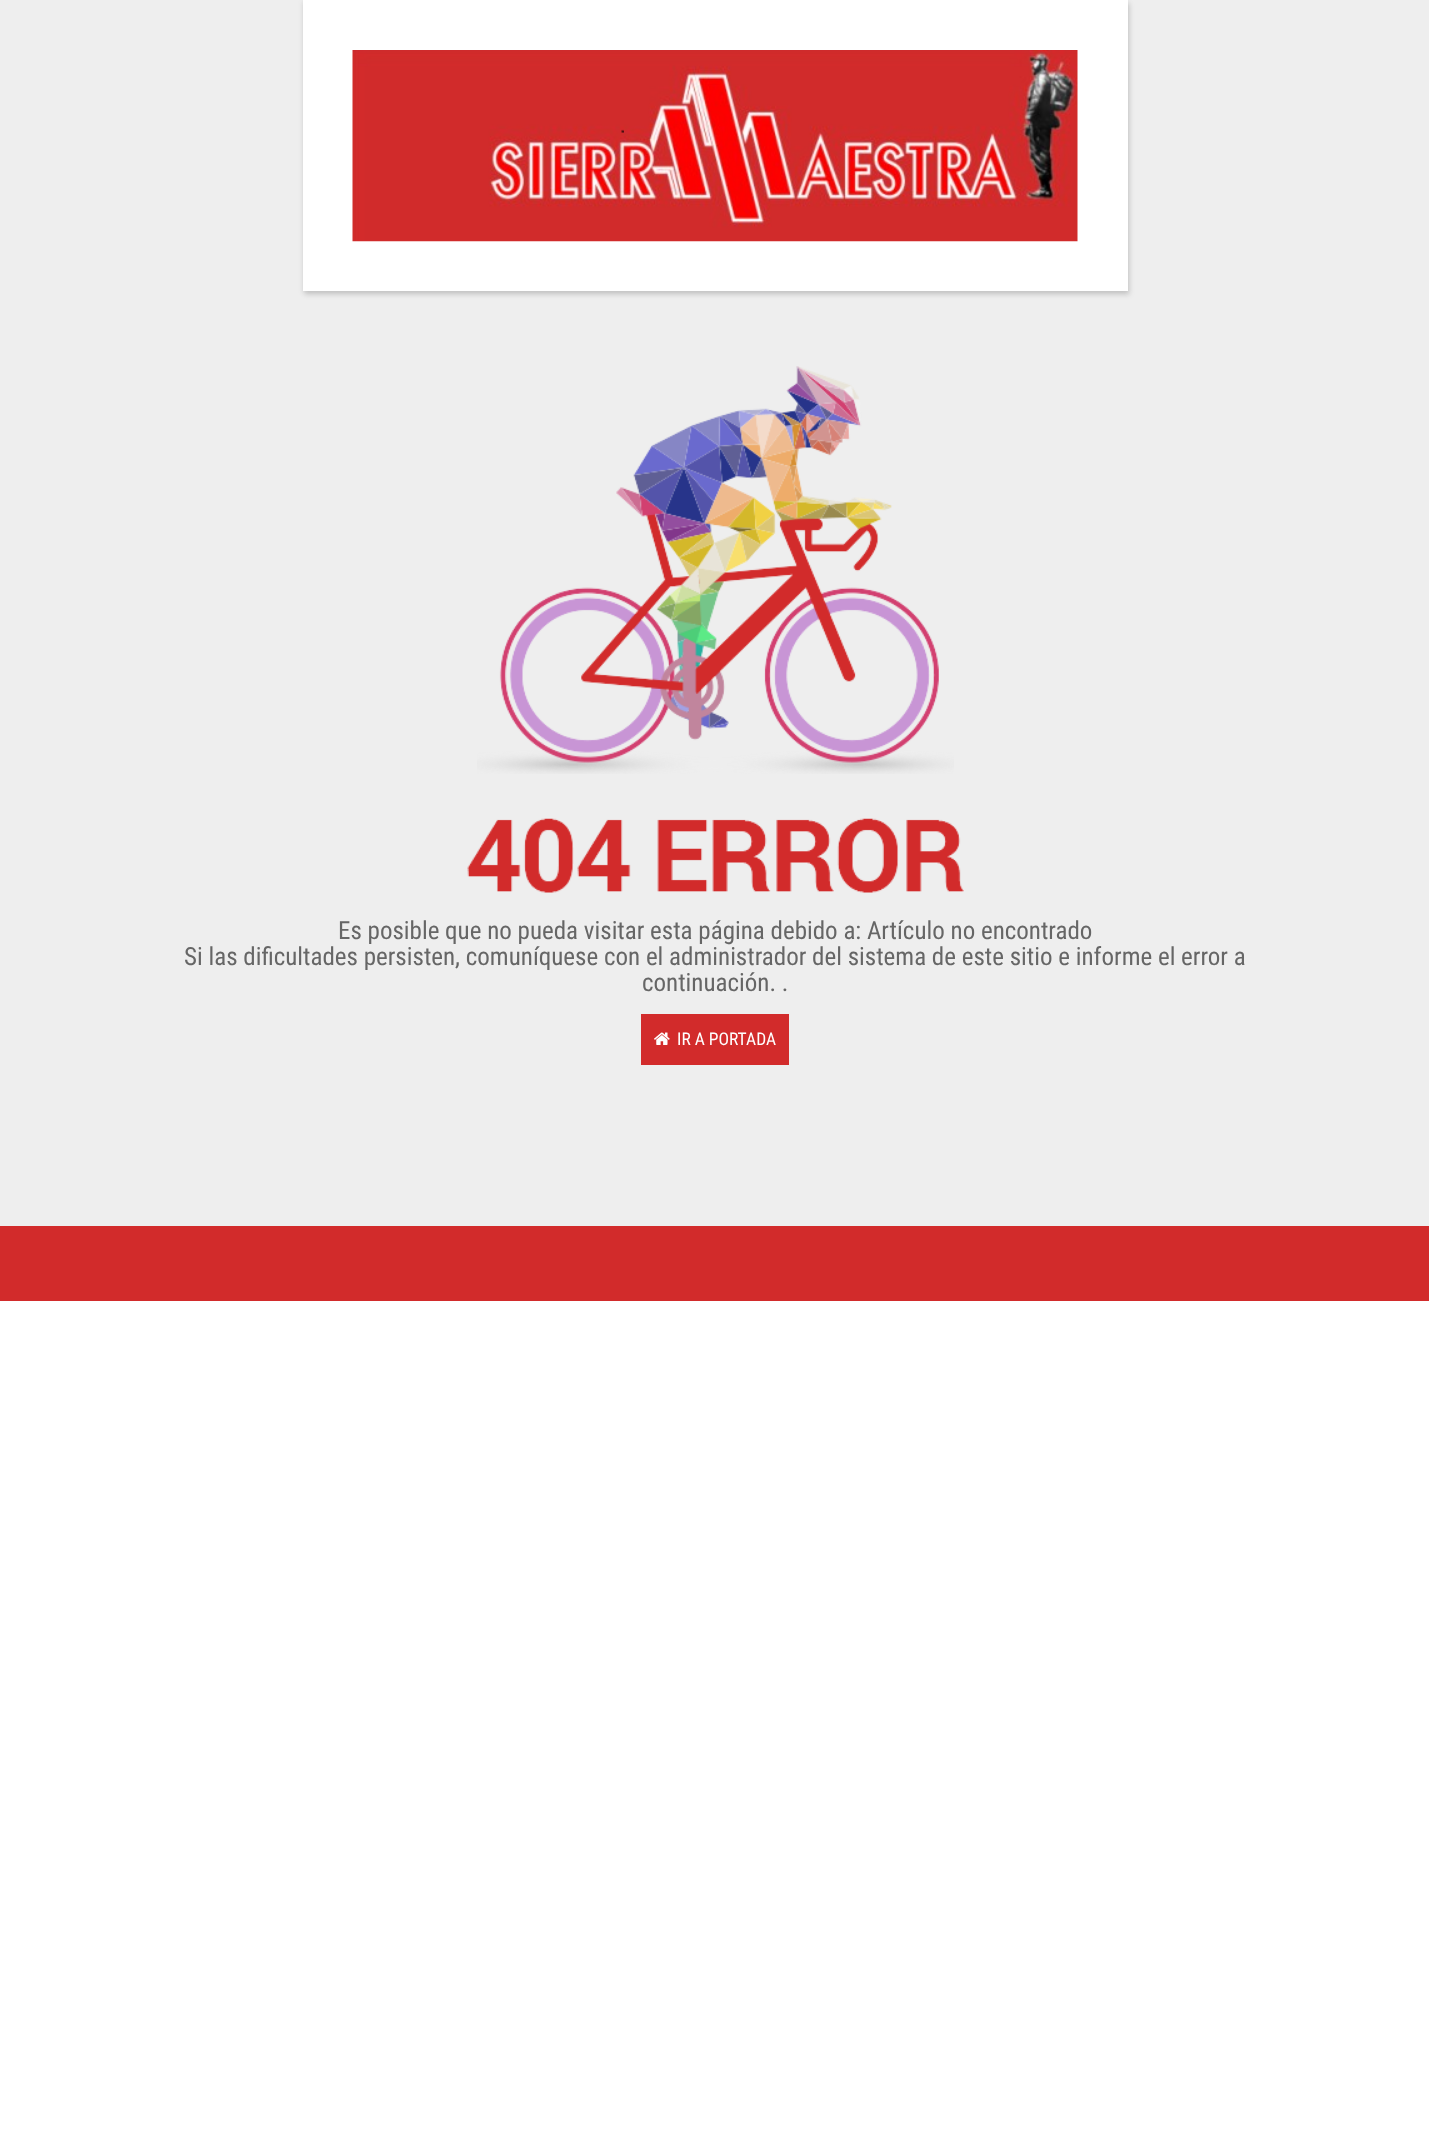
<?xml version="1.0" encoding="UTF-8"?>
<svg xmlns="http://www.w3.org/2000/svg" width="1429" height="2143">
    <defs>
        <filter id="blur1" x="-50%" y="-200%" width="200%" height="500%"><feGaussianBlur stdDeviation="2.5"/></filter>
    </defs>
    <rect width="100%" height="100%" fill="#FFFFFF"/>
    <rect x="0" y="0" width="1429" height="1226" fill="#EEEEEE"/>
    <rect x="0" y="1226" width="1429" height="75" fill="#D22B2B"/>
    <rect x="305" y="4" width="825" height="291" fill="#000000" fill-opacity="0.1" filter="url(#blur1)"/>
    <rect x="303" y="1" width="825" height="292" fill="#000000" fill-opacity="0.1" filter="url(#blur1)"/>
    <rect x="303" y="0" width="825" height="291" fill="#FFFFFF"/>
    <image x="352" y="50" width="726" height="192" href="img_01.png"/>
    <image x="477" y="366" width="477" height="408" href="img_02.png"/>
    <image x="467" y="818" width="497" height="75" href="img_03.png"/>
    <text x="338" y="939" font-family="Roboto" font-size="25" fill="#666666">Es posible que no pueda visitar esta página debido a: Artículo no encontrado</text>
    <text x="184" y="965" font-family="Roboto" font-size="25" fill="#666666">Si las dificultades persisten, comuníquese con el administrador del sistema de este sitio e informe el error a</text>
    <text x="642" y="991" font-family="Roboto" font-size="25" fill="#666666">continuación. .</text>
    <rect x="641" y="1014" width="148" height="51" fill="#D22B2B"/>
    <image x="654" y="1032" width="16" height="13" href="img_04.png"/>
    <text x="677" y="1045" font-family="Roboto" font-size="17.5" fill="#FFFFFF">IR A PORTADA</text>
</svg>
